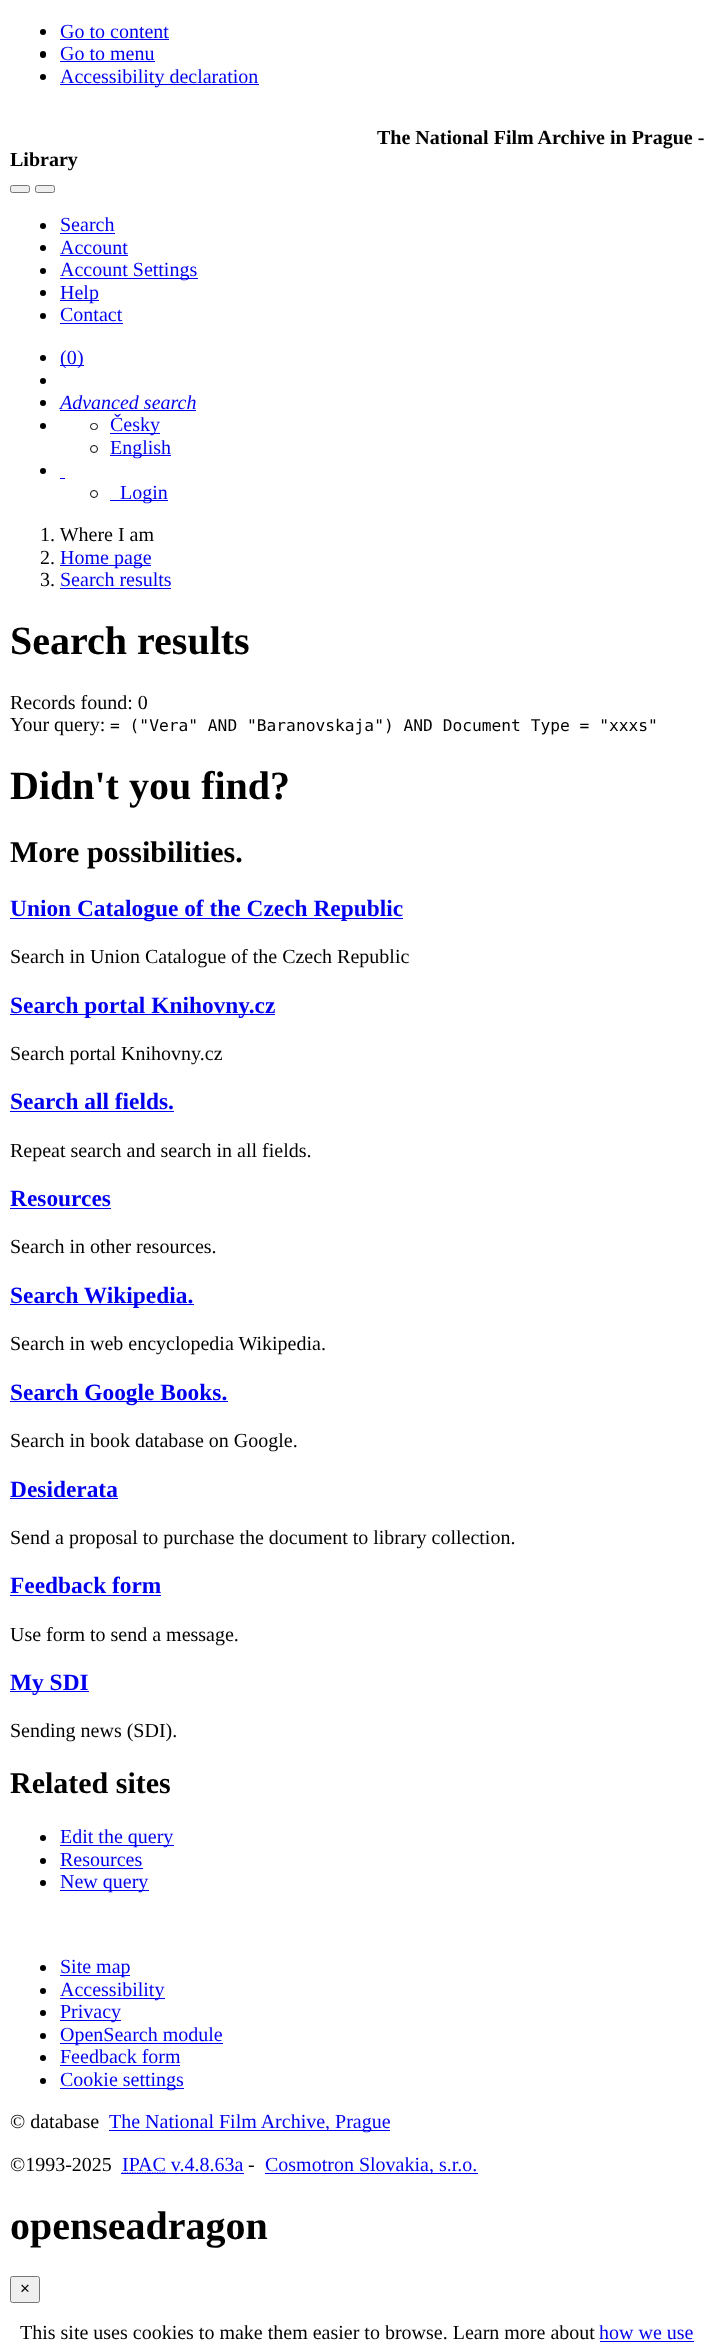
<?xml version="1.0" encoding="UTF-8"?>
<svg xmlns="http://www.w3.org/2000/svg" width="719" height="2350">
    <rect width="100%" height="100%" fill="#FFFFFF"/>
    <circle cx="43" cy="32" r="3" fill="#000000"/>
    <text x="60" y="38" font-family="Liberation Serif" font-size="20" fill="#0000EE">Go to content</text>
    <rect x="60" y="39" width="109" height="1" fill="#0000EE"/>
    <rect x="40" y="51" width="6" height="7" rx="3" fill="#000000"/>
    <text x="60" y="60" font-family="Liberation Serif" font-size="20" fill="#0000EE">Go to menu</text>
    <rect x="60" y="61" width="95" height="1" fill="#0000EE"/>
    <circle cx="43" cy="77" r="3" fill="#000000"/>
    <rect x="60" y="84" width="199" height="1" fill="#0000EE"/>
    <text x="60" y="83" font-family="Liberation Serif" font-size="20" fill="#0000EE">Accessibility declaration</text>
    <text x="377" y="144" font-family="Liberation Serif" font-size="20" font-weight="700" fill="#000000">The National Film Archive in Prague -</text>
    <text x="10" y="166" font-family="Liberation Serif" font-size="20" font-weight="700" fill="#000000">Library</text>
    <rect x="10.5" y="185.5" width="19" height="7" rx="2" fill="#EFEFEF" stroke="#767676"/>
    <rect x="35.5" y="185.5" width="19" height="7" rx="2" fill="#EFEFEF" stroke="#767676"/>
    <circle cx="43" cy="226" r="3" fill="#000000"/>
    <text x="60" y="231" font-family="Liberation Serif" font-size="20" fill="#0000EE">Search</text>
    <rect x="60" y="233" width="55" height="1" fill="#0000EE"/>
    <circle cx="43" cy="248" r="3" fill="#000000"/>
    <text x="60" y="254" font-family="Liberation Serif" font-size="20" fill="#0000EE">Account</text>
    <rect x="60" y="255" width="68" height="1" fill="#0000EE"/>
    <circle cx="43" cy="271" r="3" fill="#000000"/>
    <rect x="60" y="278" width="138" height="1" fill="#0000EE"/>
    <text x="60" y="276" font-family="Liberation Serif" font-size="20" fill="#0000EE">Account Settings</text>
    <circle cx="43" cy="293" r="3" fill="#000000"/>
    <rect x="60" y="300" width="39" height="1" fill="#0000EE"/>
    <text x="60" y="299" font-family="Liberation Serif" font-size="20" fill="#0000EE">Help</text>
    <circle cx="43" cy="316" r="3" fill="#000000"/>
    <text x="60" y="321" font-family="Liberation Serif" font-size="20" fill="#0000EE">Contact</text>
    <rect x="60" y="323" width="63" height="1" fill="#0000EE"/>
    <circle cx="43" cy="358" r="3" fill="#000000"/>
    <rect x="60" y="365" width="6" height="1" fill="#0000EE"/>
    <text x="60" y="364" font-family="Liberation Serif" font-size="20" fill="#0000EE">(0</text>
    <rect x="66" y="365" width="18" height="1" fill="#0000EE"/>
    <text x="77" y="364" font-family="Liberation Serif" font-size="20" fill="#0000EE">)</text>
    <circle cx="43" cy="381" r="3" fill="#000000"/>
    <circle cx="43" cy="403" r="3" fill="#000000"/>
    <text x="60" y="409" font-family="Liberation Serif" font-size="20" font-style="italic" fill="#0000EE">Advanced search</text>
    <rect x="60" y="410" width="136" height="1" fill="#0000EE"/>
    <circle cx="43" cy="426" r="3" fill="#000000"/>
    <rect x="90.5" y="423.5" width="7" height="6" rx="3" fill="none" stroke="#000000"/>
    <rect x="110" y="433" width="50" height="1" fill="#0000EE"/>
    <text x="110" y="431" font-family="Liberation Serif" font-size="20" fill="#0000EE">Česky</text>
    <circle cx="94" cy="449" r="3.5" fill="none" stroke="#000000"/>
    <rect x="110" y="455" width="61" height="1" fill="#0000EE"/>
    <text x="110" y="454" font-family="Liberation Serif" font-size="20" fill="#0000EE">English</text>
    <circle cx="43" cy="471" r="3" fill="#000000"/>
    <rect x="60" y="478" width="5" height="1" fill="#0000EE"/>
    <circle cx="94" cy="494" r="3.5" fill="none" stroke="#000000"/>
    <rect x="110" y="500" width="58" height="1" fill="#0000EE"/>
    <text x="120" y="499" font-family="Liberation Serif" font-size="20" fill="#0000EE">Login</text>
    <text font-family="Liberation Serif" font-size="20" fill="#000000">
        <tspan x="40" y="541">1. Where I am</tspan>
        <tspan x="40" y="564">2.</tspan>
    </text>
    <rect x="60" y="565" width="91" height="1" fill="#0000EE"/>
    <text x="60" y="564" font-family="Liberation Serif" font-size="20" fill="#0000EE">Home page</text>
    <text x="40" y="586" font-family="Liberation Serif" font-size="20" fill="#000000">3.</text>
    <text x="60" y="586" font-family="Liberation Serif" font-size="20" fill="#0000EE">Search results</text>
    <rect x="60" y="588" width="111" height="1" fill="#0000EE"/>
    <text x="10" y="654" font-family="Liberation Serif" font-size="40" font-weight="700" fill="#000000">Search results</text>
    <text font-family="Liberation Serif" font-size="20" fill="#000000">
        <tspan x="10" y="709">Records found: 0</tspan>
        <tspan x="10" y="731">Your query:</tspan>
    </text>
    <text x="110" y="731" font-family="DejaVu Sans Mono" font-size="16.25" fill="#000000">= ("Vera" AND "Baranovskaja") AND Document Type = "xxxs"</text>
    <text x="10" y="799" font-family="Liberation Serif" font-size="40" font-weight="700" fill="#000000">Didn't you find?</text>
    <text x="10" y="862" font-family="Liberation Serif" font-size="30" font-weight="700" fill="#000000">More possibilities.</text>
    <rect x="10" y="918" width="393" height="1" fill="#0000EE"/>
    <text x="10" y="916" font-family="Liberation Serif" font-size="23.4" font-weight="700" fill="#0000EE">Union Catalogue of the Czech Republic</text>
    <text x="10" y="963" font-family="Liberation Serif" font-size="20" fill="#000000">Search in Union Catalogue of the Czech Republic</text>
    <rect x="10" y="1014" width="265" height="1" fill="#0000EE"/>
    <text x="10" y="1013" font-family="Liberation Serif" font-size="23.4" font-weight="700" fill="#0000EE">Search portal Knihovny.cz</text>
    <text x="10" y="1060" font-family="Liberation Serif" font-size="20" fill="#000000">Search portal Knihovny.cz</text>
    <text x="10" y="1109" font-family="Liberation Serif" font-size="23.4" font-weight="700" fill="#0000EE">Search all fields.</text>
    <rect x="10" y="1111" width="164" height="1" fill="#0000EE"/>
    <text x="10" y="1157" font-family="Liberation Serif" font-size="20" fill="#000000">Repeat search and search in all fields.</text>
    <text x="10" y="1206" font-family="Liberation Serif" font-size="23.4" font-weight="700" fill="#0000EE">Resources</text>
    <rect x="10" y="1208" width="101" height="1" fill="#0000EE"/>
    <text x="10" y="1253" font-family="Liberation Serif" font-size="20" fill="#000000">Search in other resources.</text>
    <rect x="10" y="1304" width="184" height="1" fill="#0000EE"/>
    <text x="10" y="1303" font-family="Liberation Serif" font-size="23.4" font-weight="700" fill="#0000EE">Search Wikipedia.</text>
    <text x="10" y="1350" font-family="Liberation Serif" font-size="20" fill="#000000">Search in web encyclopedia Wikipedia.</text>
    <rect x="10" y="1401" width="218" height="1" fill="#0000EE"/>
    <text x="10" y="1400" font-family="Liberation Serif" font-size="23.4" font-weight="700" fill="#0000EE">Search Google Books.</text>
    <text x="10" y="1447" font-family="Liberation Serif" font-size="20" fill="#000000">Search in book database on Google.</text>
    <text x="10" y="1497" font-family="Liberation Serif" font-size="23.4" font-weight="700" fill="#0000EE">Desiderata</text>
    <rect x="10" y="1498" width="108" height="1" fill="#0000EE"/>
    <text x="10" y="1544" font-family="Liberation Serif" font-size="20" fill="#000000">Send a proposal to purchase the document to library collection.</text>
    <text x="10" y="1593" font-family="Liberation Serif" font-size="23.4" font-weight="700" fill="#0000EE">Feedback form</text>
    <rect x="10" y="1595" width="151" height="1" fill="#0000EE"/>
    <text x="10" y="1641" font-family="Liberation Serif" font-size="20" fill="#000000">Use form to send a message.</text>
    <rect x="10" y="1691" width="79" height="1" fill="#0000EE"/>
    <text x="10" y="1690" font-family="Liberation Serif" font-size="23.4" font-weight="700" fill="#0000EE">My SDI</text>
    <text x="10" y="1737" font-family="Liberation Serif" font-size="20" fill="#000000">Sending news (SDI).</text>
    <text x="10" y="1793" font-family="Liberation Serif" font-size="30" font-weight="700" fill="#000000">Related sites</text>
    <circle cx="43" cy="1838" r="3" fill="#000000"/>
    <rect x="60" y="1845" width="114" height="1" fill="#0000EE"/>
    <text x="60" y="1843" font-family="Liberation Serif" font-size="20" fill="#0000EE">Edit the query</text>
    <circle cx="43" cy="1861" r="3" fill="#000000"/>
    <text x="60" y="1866" font-family="Liberation Serif" font-size="20" fill="#0000EE">Resources</text>
    <rect x="60" y="1868" width="83" height="1" fill="#0000EE"/>
    <circle cx="43" cy="1883" r="3" fill="#000000"/>
    <rect x="60" y="1890" width="89" height="1" fill="#0000EE"/>
    <text x="60" y="1888" font-family="Liberation Serif" font-size="20" fill="#0000EE">New query</text>
    <circle cx="43" cy="1968" r="3" fill="#000000"/>
    <rect x="60" y="1975" width="70" height="1" fill="#0000EE"/>
    <text x="60" y="1973" font-family="Liberation Serif" font-size="20" fill="#0000EE">Site map</text>
    <circle cx="43" cy="1991" r="3" fill="#000000"/>
    <rect x="60" y="1998" width="105" height="1" fill="#0000EE"/>
    <text x="60" y="1996" font-family="Liberation Serif" font-size="20" fill="#0000EE">Accessibility</text>
    <circle cx="43" cy="2013" r="3" fill="#000000"/>
    <rect x="60" y="2020" width="61" height="1" fill="#0000EE"/>
    <text x="60" y="2018" font-family="Liberation Serif" font-size="20" fill="#0000EE">Privacy</text>
    <circle cx="43" cy="2036" r="3" fill="#000000"/>
    <rect x="60" y="2043" width="163" height="1" fill="#0000EE"/>
    <text x="60" y="2041" font-family="Liberation Serif" font-size="20" fill="#0000EE">OpenSearch module</text>
    <circle cx="43" cy="2058" r="3" fill="#000000"/>
    <text x="60" y="2063" font-family="Liberation Serif" font-size="20" fill="#0000EE">Feedback form</text>
    <rect x="60" y="2065" width="120" height="1" fill="#0000EE"/>
    <circle cx="43" cy="2081" r="3" fill="#000000"/>
    <rect x="60" y="2088" width="124" height="1" fill="#0000EE"/>
    <text x="60" y="2086" font-family="Liberation Serif" font-size="20" fill="#0000EE">Cookie settings</text>
    <text x="10" y="2128" font-family="Liberation Serif" font-size="20" fill="#000000">© database</text>
    <rect x="109" y="2130" width="281" height="1" fill="#0000EE"/>
    <text x="109" y="2128" font-family="Liberation Serif" font-size="20" fill="#0000EE">The National Film Archive, Prague</text>
    <text x="10" y="2171" font-family="Liberation Serif" font-size="20" fill="#000000">©1993-2025</text>
    <text x="122" y="2171" font-family="Liberation Serif" font-size="20" fill="#0000EE">IPAC v.4.8.63a</text>
    <path d="M 122 2173 H 165.5" fill="none" stroke="#0000EE" stroke-width="1.2" stroke-dasharray="1.25 1.25"/>
    <rect x="121" y="2173" width="123" height="1" fill="#0000EE"/>
    <text x="248" y="2171" font-family="Liberation Serif" font-size="20" fill="#000000">-</text>
    <rect x="265" y="2173" width="213" height="1" fill="#0000EE"/>
    <text x="265" y="2171" font-family="Liberation Serif" font-size="20" fill="#0000EE">Cosmotron Slovakia, s.r.o.</text>
    <text x="10" y="2239" font-family="Liberation Serif" font-size="40" font-weight="700" fill="#000000">openseadragon</text>
    <rect x="10.5" y="2276.5" width="29" height="26" rx="2" fill="#EFEFEF" stroke="#767676"/>
    <text x="20" y="2294" font-family="Liberation Sans" font-size="17" fill="#000000">×</text>
    <text x="20" y="2339" font-family="Liberation Serif" font-size="20" fill="#000000">This site uses cookies to make them easier to browse. Learn more about</text>
    <text x="599" y="2339" font-family="Liberation Serif" font-size="20" fill="#0000EE">how we use</text>
    <rect x="600" y="2341" width="94" height="1" fill="#0000EE"/>
</svg>
